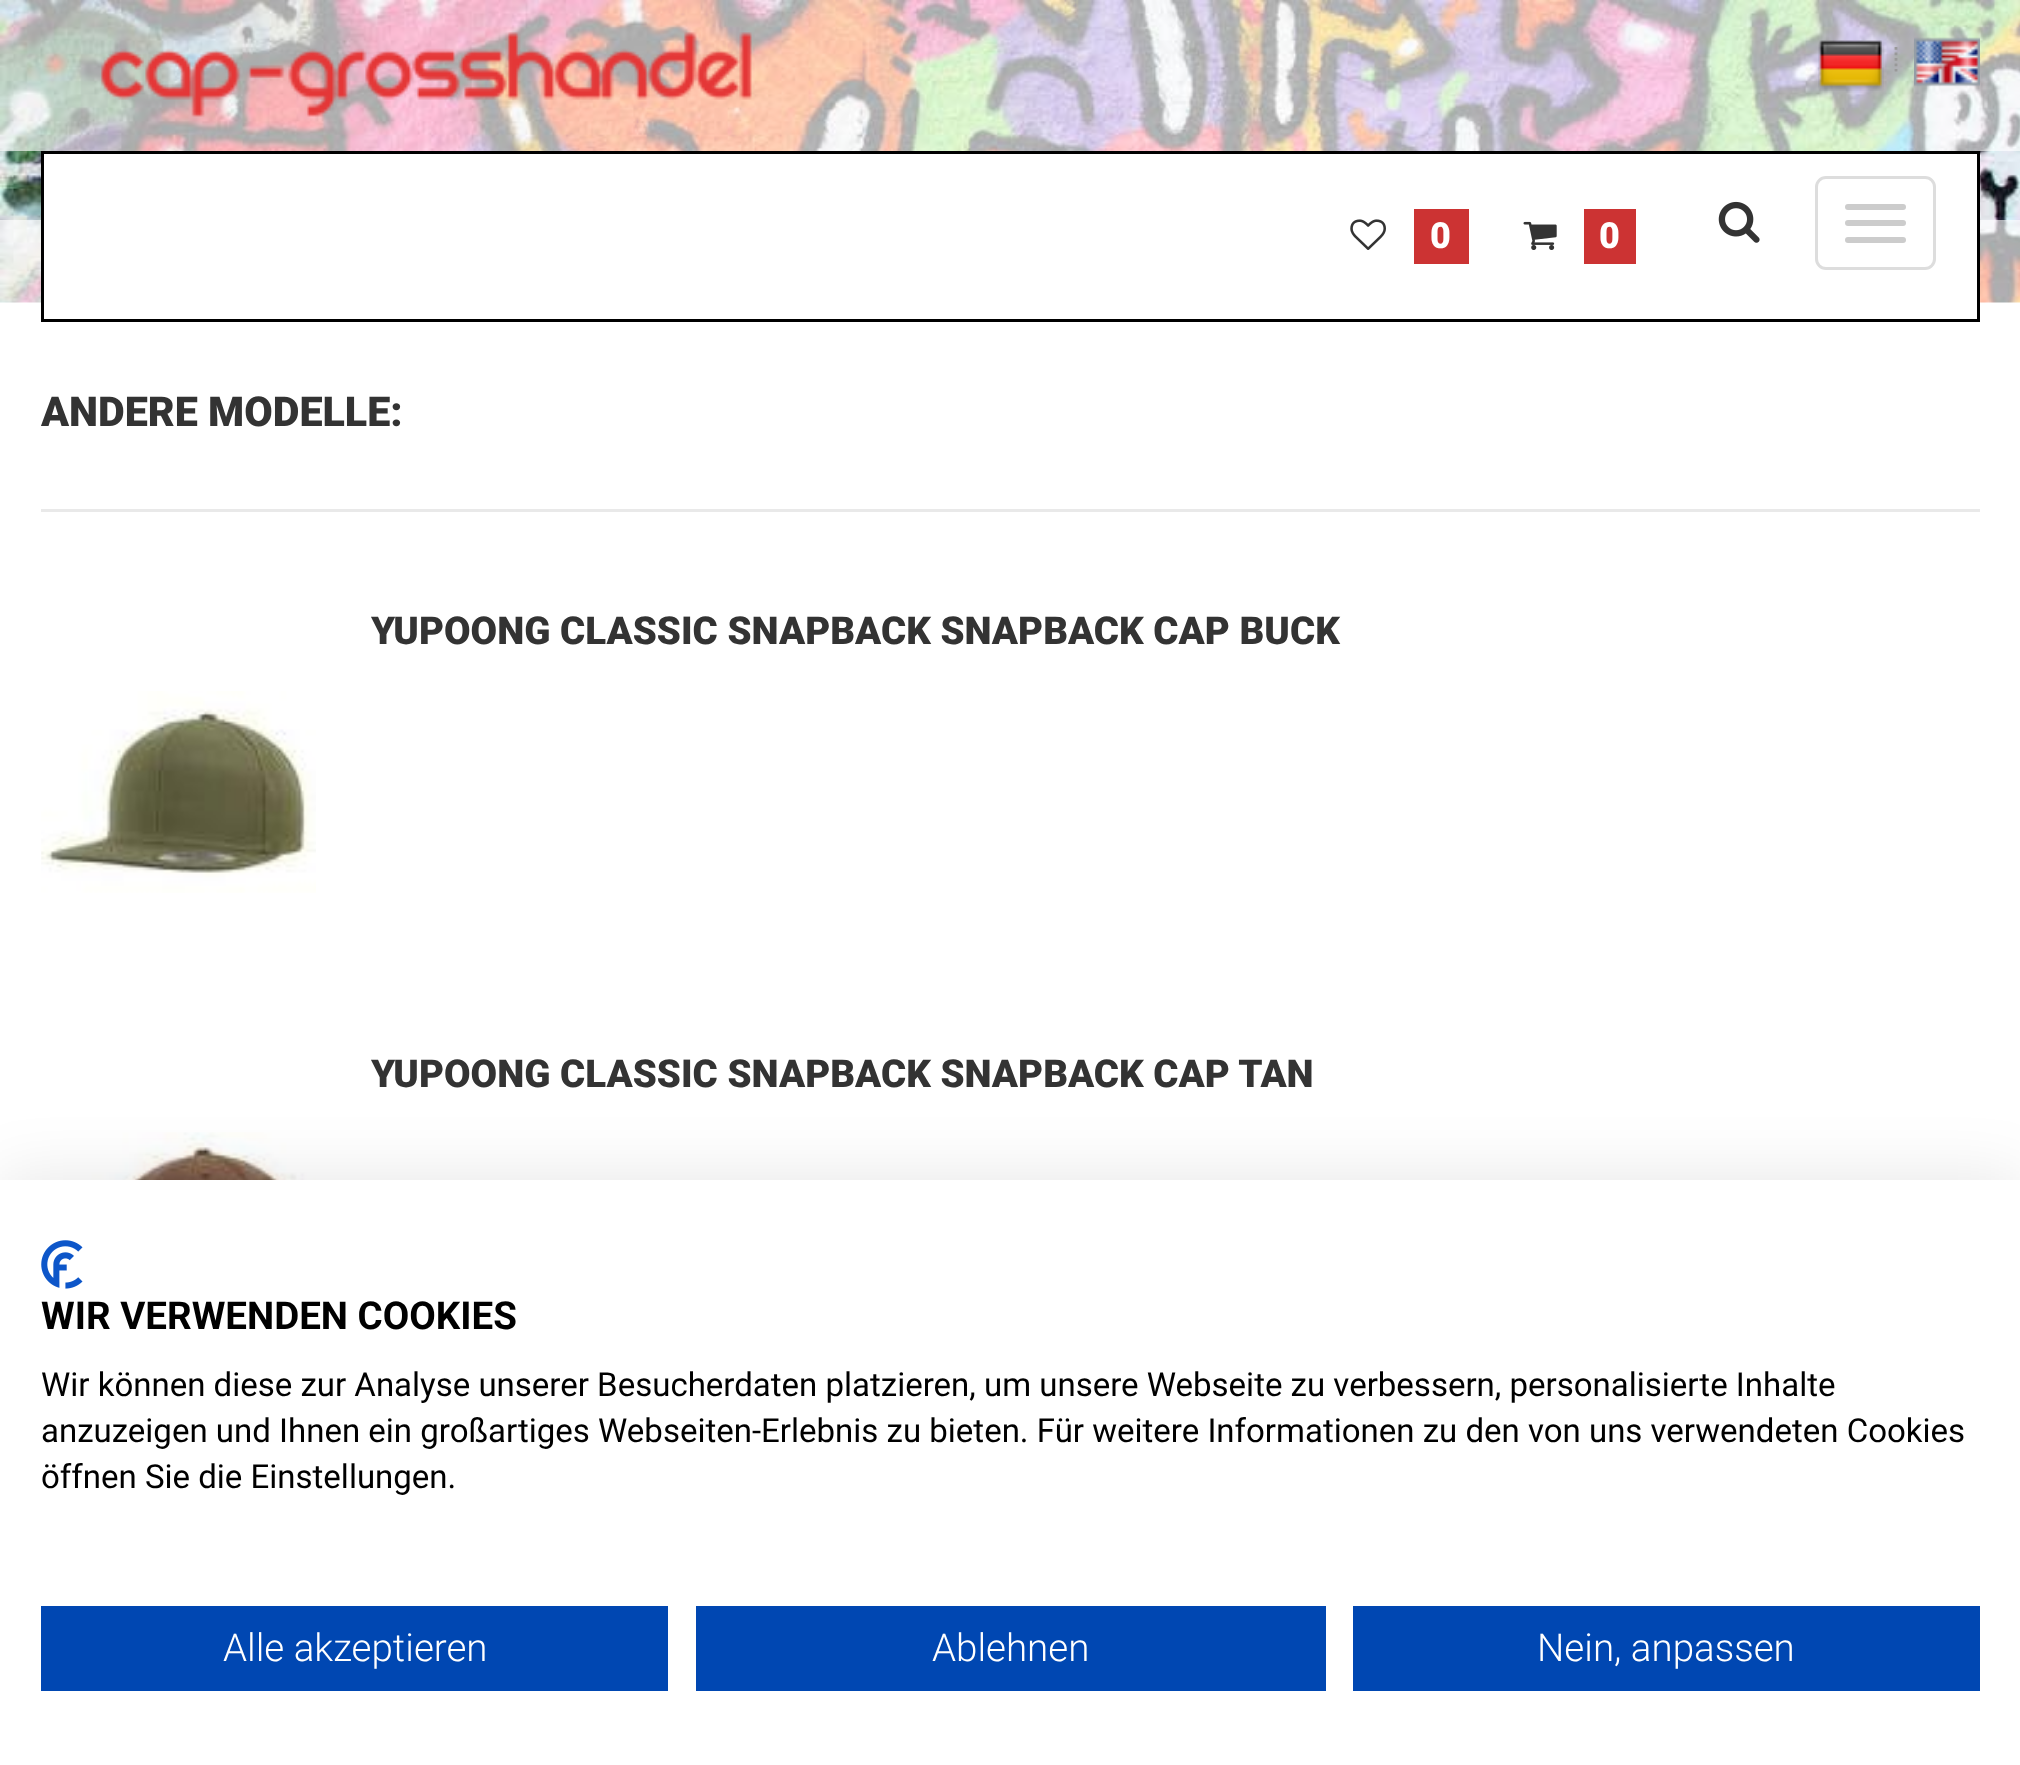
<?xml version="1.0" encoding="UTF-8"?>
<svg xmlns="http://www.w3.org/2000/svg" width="2020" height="1765">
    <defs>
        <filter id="blur1" x="-50%" y="-200%" width="200%" height="500%"><feGaussianBlur stdDeviation="33"/></filter>
    </defs>
    <rect width="100%" height="100%" fill="#FFFFFF"/>
    <image x="0" y="0" width="2020" height="303" href="img_01.png"/>
    <rect x="0" y="220" width="2020" height="83" fill="#FFFFFF" fill-opacity="0.65"/>
    <rect x="0" y="0" width="2020" height="151" fill="#FFFFFF" fill-opacity="0.65"/>
    <image x="101" y="32" width="651" height="85" href="img_02.png"/>
    <image x="1818" y="40" width="66" height="51" href="img_03.png"/>
    <path d="M 1896 47 V 71.5" fill="none" stroke="#999999" stroke-width="2.8" stroke-dasharray="2.75 2.75"/>
    <image x="1914" y="37" width="66" height="50" href="img_04.png"/>
    <rect x="44" y="154" width="1933" height="149" fill="#FFFFFF"/>
    <rect x="42.5" y="152.5" width="1936" height="168" fill="none" stroke="#000000" stroke-width="3"/>
    <image x="1350" y="219" width="36" height="31" href="img_05.png"/>
    <rect x="1414" y="209" width="55" height="55" fill="#CC3333"/>
    <text x="1430" y="248" font-family="Roboto" font-size="36" font-weight="900" fill="#FFFFFF">0</text>
    <image x="1523" y="221" width="34" height="29" href="img_06.png"/>
    <rect x="1584" y="209" width="52" height="55" fill="#CC3333"/>
    <text x="1599" y="248" font-family="Roboto" font-size="36" font-weight="900" fill="#FFFFFF">0</text>
    <image x="1718" y="201" width="42" height="42" href="img_07.png"/>
    <rect x="1816.5" y="177.5" width="118" height="91" rx="9.5" fill="none" stroke="#DDDDDD" stroke-width="3"/>
    <rect x="1845" y="204" width="61" height="6" rx="3" fill="#CCCCCC"/>
    <rect x="1845" y="220" width="61" height="6" rx="3" fill="#CCCCCC"/>
    <rect x="1845" y="237" width="61" height="6" rx="3" fill="#CCCCCC"/>
    <rect x="41" y="509" width="1939" height="3" fill="#E9E9E9"/>
    <text x="41" y="426" font-family="Roboto" font-size="41.25" font-weight="900" fill="#333333">ANDERE MODELLE:</text>
    <text x="371" y="644" font-family="Roboto" font-size="38.5" font-weight="900" fill="#333333">YUPOONG CLASSIC SNAPBACK SNAPBACK CAP BUCK</text>
    <image x="41" y="691" width="275" height="202" href="img_08.png"/>
    <text x="371" y="1087" font-family="Roboto" font-size="38.5" font-weight="900" fill="#333333">YUPOONG CLASSIC SNAPBACK SNAPBACK CAP TAN</text>
    <image x="41" y="1132" width="275" height="48" href="img_09.png"/>
    <rect x="0" y="1180" width="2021" height="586" fill="#000000" fill-opacity="0.1" filter="url(#blur1)"/>
    <rect x="0" y="1180" width="2020" height="585" fill="#FFFFFF"/>
    <image x="41" y="1240" width="42" height="49" href="img_10.png"/>
    <text x="41" y="1329" font-family="Roboto" font-size="38.5" font-weight="700" fill="#000000">WIR VERWENDEN COOKIES</text>
    <text font-family="Roboto" font-size="33" fill="#000000">
        <tspan x="41" y="1396">Wir können diese zur Analyse unserer Besucherdaten platzieren, um unsere Webseite zu verbessern, personalisierte Inhalte</tspan>
        <tspan x="41" y="1442">anzuzeigen und Ihnen ein großartiges Webseiten-Erlebnis zu bieten. Für weitere Informationen zu den von uns verwendeten Cookies</tspan>
        <tspan x="41" y="1488">öffnen Sie die Einstellungen.</tspan>
    </text>
    <rect x="41" y="1606" width="627" height="85" fill="#0047B2"/>
    <text x="223" y="1661" font-family="Roboto" font-size="38.5" font-weight="300" fill="#FFFFFF">Alle akzeptieren</text>
    <rect x="696" y="1606" width="630" height="85" fill="#0047B2"/>
    <text x="932" y="1661" font-family="Roboto" font-size="38.5" font-weight="300" fill="#FFFFFF">Ablehnen</text>
    <rect x="1353" y="1606" width="627" height="85" fill="#0047B2"/>
    <text x="1537" y="1661" font-family="Roboto" font-size="38.5" font-weight="300" fill="#FFFFFF">Nein, anpassen</text>
</svg>
